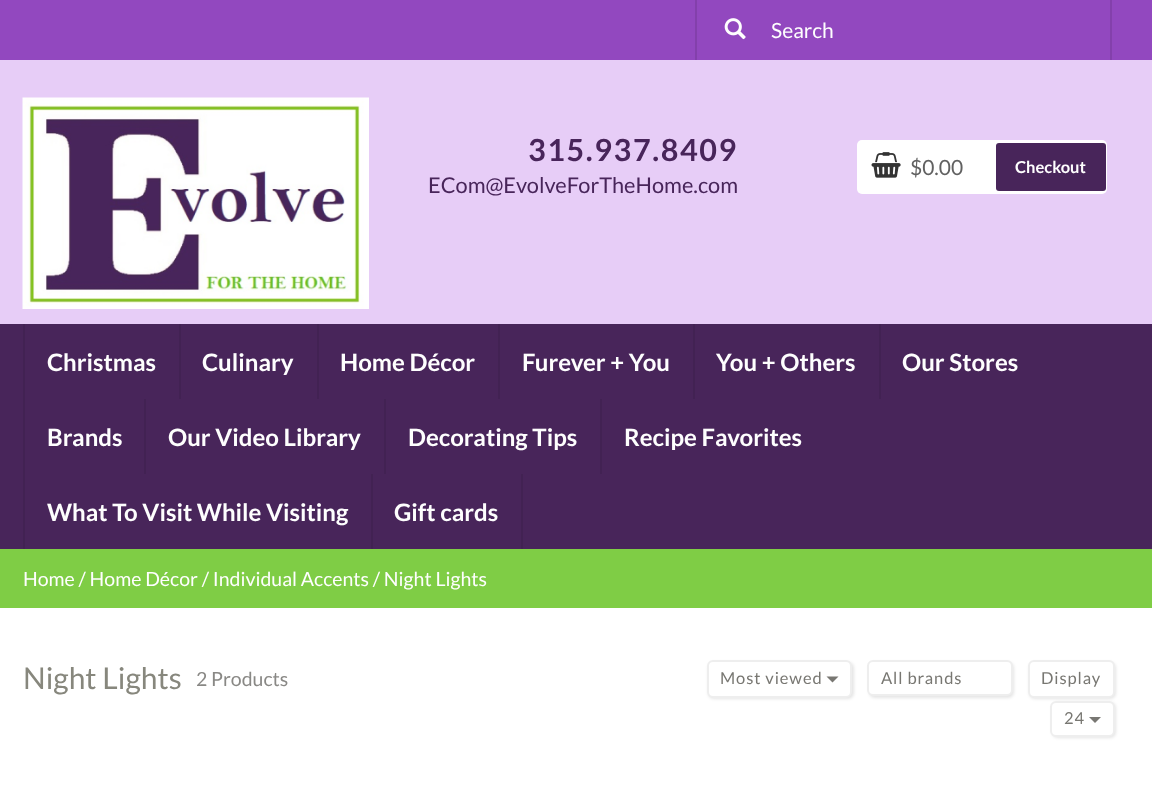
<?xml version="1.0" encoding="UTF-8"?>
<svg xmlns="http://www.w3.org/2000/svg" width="1152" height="807">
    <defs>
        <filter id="blur1" x="-50%" y="-200%" width="200%" height="500%"><feGaussianBlur stdDeviation="1.5"/></filter>
    </defs>
    <rect width="100%" height="100%" fill="#FFFFFF"/>
    <rect x="0" y="0" width="1152" height="60" fill="#9248BF"/>
    <image x="724" y="18" width="22" height="22" href="img_01.png"/>
    <rect x="1110" y="0" width="2" height="60" fill="#8340AB"/>
    <rect x="695" y="0" width="2" height="60" fill="#8340AB"/>
    <text x="771" y="38" font-family="Lato" font-size="21" fill="#FEFEFE">Search</text>
    <rect x="0" y="60" width="1152" height="264" fill="#E7CDF7"/>
    <image x="22" y="97" width="347" height="212" href="img_02.png"/>
    <text x="528" y="161" font-family="Lato" font-size="30.5" font-weight="700" letter-spacing="1.6" fill="#48255A">315.937.8409</text>
    <text x="428" y="193" font-family="Lato" font-size="21.75" fill="#48255A">ECom@EvolveForTheHome.com</text>
    <rect x="857" y="140" width="250" height="54" rx="5" fill="#FFFFFF"/>
    <image x="871" y="152" width="30" height="26" href="img_03.png"/>
    <text x="910" y="175" font-family="Lato" font-size="21" fill="#616161">$0.00</text>
    <rect x="996" y="143" width="110" height="48" rx="3" fill="#48255A"/>
    <text x="1015" y="173" font-family="Lato" font-size="16.5" font-weight="700" fill="#FEFEFE">Checkout</text>
    <rect x="0" y="324" width="1152" height="225" fill="#48255A"/>
    <rect x="23" y="324" width="2" height="225" fill="#422253"/>
    <text x="47" y="371" font-family="Lato" font-size="24" font-weight="700" fill="#FEFEFE">Christmas</text>
    <rect x="179" y="324" width="2" height="75" fill="#422253"/>
    <text x="202" y="371" font-family="Lato" font-size="24" font-weight="700" fill="#FEFEFE">Culinary</text>
    <rect x="317" y="324" width="2" height="75" fill="#422253"/>
    <text x="340" y="371" font-family="Lato" font-size="24" font-weight="700" fill="#FEFEFE">Home Décor</text>
    <rect x="498" y="324" width="2" height="75" fill="#422253"/>
    <text x="522" y="371" font-family="Lato" font-size="24" font-weight="700" fill="#FEFEFE">Furever + You</text>
    <rect x="693" y="324" width="2" height="75" fill="#422253"/>
    <text x="716" y="371" font-family="Lato" font-size="24" font-weight="700" fill="#FEFEFE">You + Others</text>
    <rect x="879" y="324" width="2" height="75" fill="#422253"/>
    <text x="902" y="371" font-family="Lato" font-size="24" font-weight="700" fill="#FEFEFE">Our Stores</text>
    <text x="47" y="446" font-family="Lato" font-size="24" font-weight="700" fill="#FEFEFE">Brands</text>
    <rect x="144" y="399" width="2" height="75" fill="#422253"/>
    <text x="168" y="446" font-family="Lato" font-size="24" font-weight="700" fill="#FEFEFE">Our Video Library</text>
    <rect x="384" y="399" width="2" height="75" fill="#422253"/>
    <text x="408" y="446" font-family="Lato" font-size="24" font-weight="700" fill="#FEFEFE">Decorating Tips</text>
    <rect x="600" y="399" width="2" height="75" fill="#422253"/>
    <text x="624" y="446" font-family="Lato" font-size="24" font-weight="700" fill="#FEFEFE">Recipe Favorites</text>
    <text x="47" y="521" font-family="Lato" font-size="24" font-weight="700" fill="#FEFEFE">What To Visit While Visiting</text>
    <rect x="521" y="474" width="2" height="75" fill="#422253"/>
    <rect x="371" y="474" width="2" height="75" fill="#422253"/>
    <text x="394" y="521" font-family="Lato" font-size="24" font-weight="700" fill="#FEFEFE">Gift cards</text>
    <rect x="0" y="549" width="1152" height="59" fill="#7FCD45"/>
    <text x="23" y="586" font-family="Lato" font-size="19.5" fill="#FEFEFE">Home / Home Décor / Individual Accents / Night Lights</text>
    <text x="23" y="689" font-family="Lato" font-size="30" fill="#87877D">Night Lights</text>
    <text x="196" y="686" font-family="Lato" font-size="19.5" fill="#898885">2 Products</text>
    <rect x="708" y="662" width="146" height="37" rx="6" fill="#000000" fill-opacity="0.1" filter="url(#blur1)"/>
    <rect x="708" y="661" width="143" height="36" rx="5" fill="#FFFFFF" stroke="#EEEEEE" stroke-width="2"/>
    <text x="720" y="684" font-family="Lato" font-size="16.5" letter-spacing="0.9" fill="#787772">Most viewed</text>
    <path d="M 826.5 676.5 H 838.5 L 832.5 682.5 Z" fill="#787772"/>
    <rect x="869" y="662" width="145" height="36" rx="6" fill="#000000" fill-opacity="0.1" filter="url(#blur1)"/>
    <rect x="868" y="661" width="144" height="34" rx="5" fill="#FFFFFF" stroke="#EEEEEE" stroke-width="2"/>
    <text x="881" y="684" font-family="Lato" font-size="16.5" letter-spacing="0.9" fill="#787772">All brands</text>
    <rect x="1029" y="662" width="87" height="37" rx="6" fill="#000000" fill-opacity="0.1" filter="url(#blur1)"/>
    <rect x="1029" y="661" width="85" height="36" rx="5" fill="#FFFFFF" stroke="#EEEEEE" stroke-width="2"/>
    <rect x="1052" y="702" width="64" height="36" rx="6" fill="#000000" fill-opacity="0.1" filter="url(#blur1)"/>
    <rect x="1051" y="702" width="63" height="34" rx="5" fill="#FFFFFF" stroke="#EEEEEE" stroke-width="2"/>
    <text x="1064" y="724" font-family="Lato" font-size="16.5" letter-spacing="0.9" fill="#787772">24</text>
    <path d="M 1089 717 H 1101 L 1095 723 Z" fill="#787772"/>
    <text x="1041" y="684" font-family="Lato" font-size="16.5" letter-spacing="0.9" fill="#787772">Display</text>
</svg>
